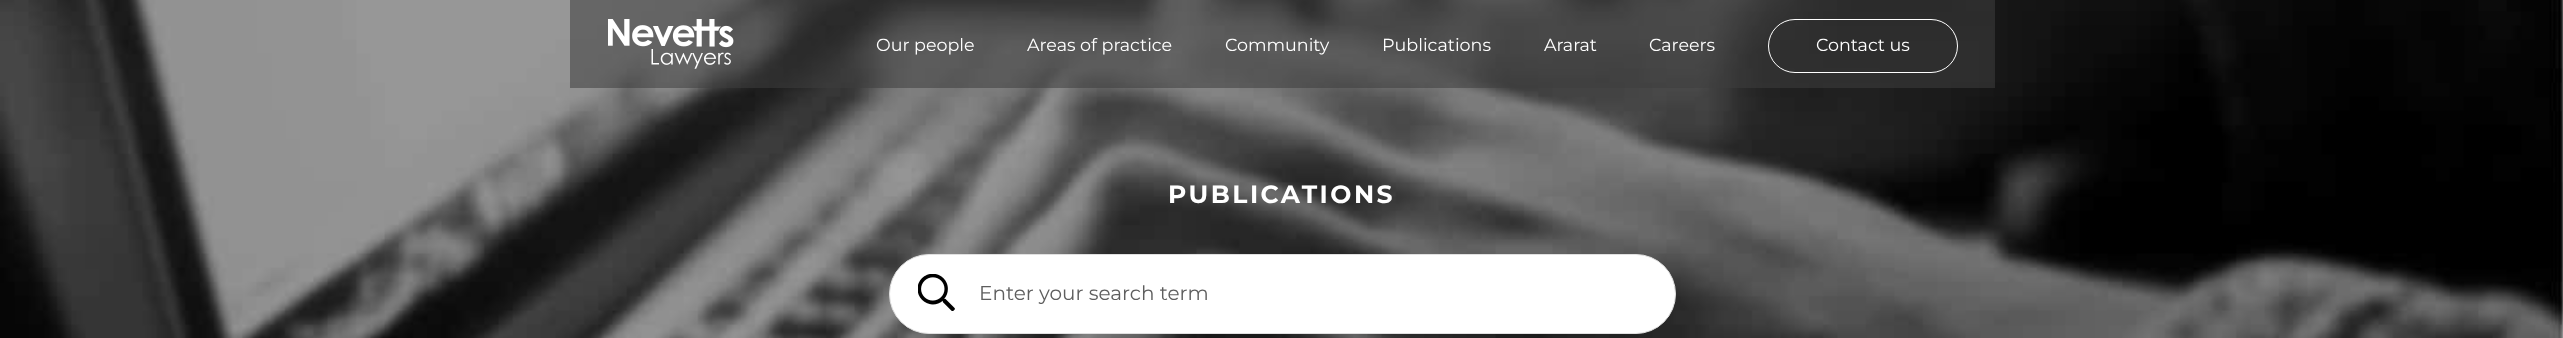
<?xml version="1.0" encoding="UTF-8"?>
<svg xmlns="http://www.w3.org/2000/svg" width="2563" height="338">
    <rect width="100%" height="100%" fill="#FFFFFF"/>
    <image x="0" y="0" width="2563" height="338" href="img_02.png"/>
    <rect x="570" y="0" width="1425" height="88" fill="#3E3E3E" fill-opacity="0.55"/>
    <image x="608" y="19" width="126" height="50" href="img_01.png"/>
    <text x="876" y="51" font-family="Montserrat" font-size="17.5" fill="#FFFFFF">Our people</text>
    <text x="1027" y="51" font-family="Montserrat" font-size="17.5" fill="#FFFFFF">Areas of practice</text>
    <text x="1225" y="51" font-family="Montserrat" font-size="17.5" fill="#FFFFFF">Community</text>
    <text x="1382" y="51" font-family="Montserrat" font-size="17.5" fill="#FFFFFF">Publications</text>
    <text x="1544" y="51" font-family="Montserrat" font-size="17.5" fill="#FFFFFF">Ararat</text>
    <text x="1649" y="51" font-family="Montserrat" font-size="17.5" fill="#FFFFFF">Careers</text>
    <rect x="1768.5" y="19.5" width="189" height="53" rx="26.5" fill="none" stroke="#FFFFFF"/>
    <text x="1816" y="51" font-family="Montserrat" font-size="17.5" fill="#FFFFFF">Contact us</text>
    <text x="1168" y="203" font-family="Montserrat" font-size="25" font-weight="700" letter-spacing="2.5" fill="#FFFFFF">PUBLICATIONS</text>
    <rect x="889.5" y="254.5" width="786" height="79" rx="39.5" fill="#FFFFFF" stroke="#E0E0E0"/>
    <image x="918" y="274" width="37" height="37" href="img_03.png"/>
    <text x="979" y="300" font-family="Montserrat" font-size="20" fill="#5E5E5E">Enter your search term</text>
</svg>
